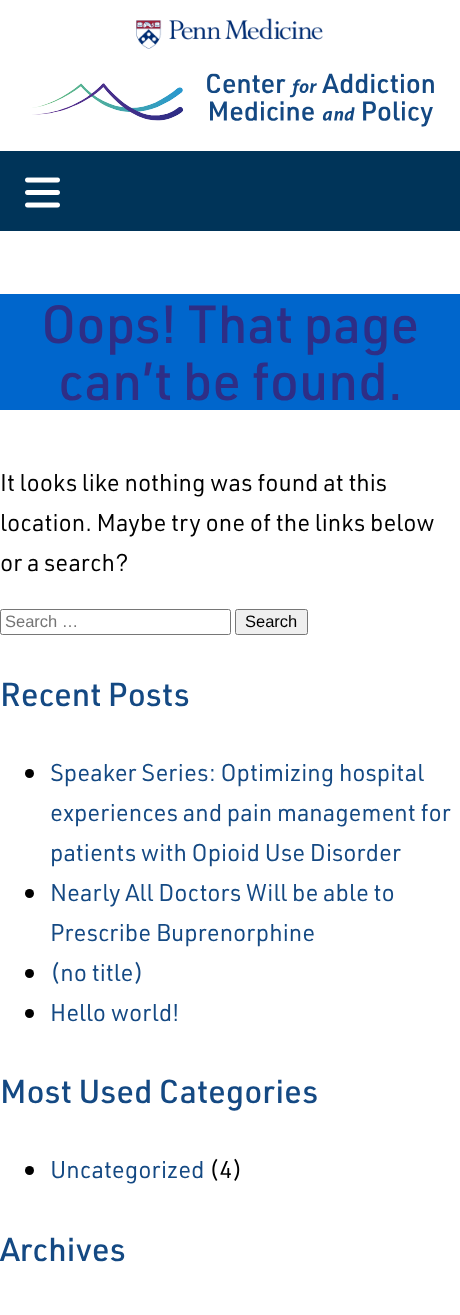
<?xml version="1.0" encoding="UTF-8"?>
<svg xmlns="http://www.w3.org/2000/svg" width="460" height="1315">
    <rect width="100%" height="100%" fill="#FFFFFF"/>
    <image x="136" y="18" width="187" height="31" href="img_01.png"/>
    <image x="32" y="73" width="402" height="54" href="img_02.png"/>
    <rect x="0" y="151" width="460" height="80" fill="#003459"/>
    <image x="25" y="177" width="35" height="31" href="img_03.png"/>
    <rect x="0" y="294" width="460" height="116" fill="#0066CC"/>
    <text x="41" y="343" font-family="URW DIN" font-size="52.5" font-weight="500" fill="#2E2E86">Oops! That page</text>
    <text x="58" y="400" font-family="URW DIN" font-size="52.5" font-weight="500" fill="#2E2E86">can’t be found.</text>
    <text font-family="URW DIN" font-size="23.75" fill="#000000">
        <tspan x="0" y="491">It looks like nothing was found at this</tspan>
        <tspan x="0" y="531">location. Maybe try one of the links below</tspan>
        <tspan x="0" y="571">or a search?</tspan>
    </text>
    <rect x="0.5" y="609.5" width="230" height="25" rx="2" fill="none" stroke="#767676"/>
    <text x="5" y="627" font-family="Liberation Sans" font-size="16.5" fill="#757575">Search …</text>
    <rect x="235.5" y="609.5" width="72" height="25" rx="2" fill="#EFEFEF" stroke="#767676"/>
    <text x="245" y="627" font-family="Liberation Sans" font-size="16.5" fill="#000000">Search</text>
    <text x="0" y="706" font-family="URW DIN" font-size="32.5" font-weight="500" fill="#144983">Recent Posts</text>
    <circle cx="29.5" cy="773.5" r="4.5" fill="#000000"/>
    <text font-family="URW DIN" font-size="23.75" fill="#144983">
        <tspan x="50" y="781">Speaker Series: Optimizing hospital</tspan>
        <tspan x="50" y="821">experiences and pain management for</tspan>
        <tspan x="50" y="861">patients with Opioid Use Disorder</tspan>
    </text>
    <circle cx="29.5" cy="893.5" r="4.5" fill="#000000"/>
    <text font-family="URW DIN" font-size="23.75" fill="#144983">
        <tspan x="50" y="901">Nearly All Doctors Will be able to</tspan>
        <tspan x="50" y="941">Prescribe Buprenorphine</tspan>
    </text>
    <circle cx="29.5" cy="973.5" r="4.5" fill="#000000"/>
    <text x="50" y="981" font-family="URW DIN" font-size="23.75" fill="#144983">(no title)</text>
    <circle cx="29.5" cy="1013.5" r="4.5" fill="#000000"/>
    <text x="50" y="1021" font-family="URW DIN" font-size="23.75" fill="#144983">Hello world!</text>
    <text x="0" y="1103" font-family="URW DIN" font-size="32.5" font-weight="500" fill="#144983">Most Used Categories</text>
    <circle cx="29.5" cy="1170.5" r="4.5" fill="#000000"/>
    <text x="50" y="1178" font-family="URW DIN" font-size="23.75" fill="#144983">Uncategorized</text>
    <text x="209" y="1178" font-family="URW DIN" font-size="23.75" fill="#000000">(4)</text>
    <text x="0" y="1261" font-family="URW DIN" font-size="32.5" font-weight="500" fill="#144983">Archives</text>
</svg>
